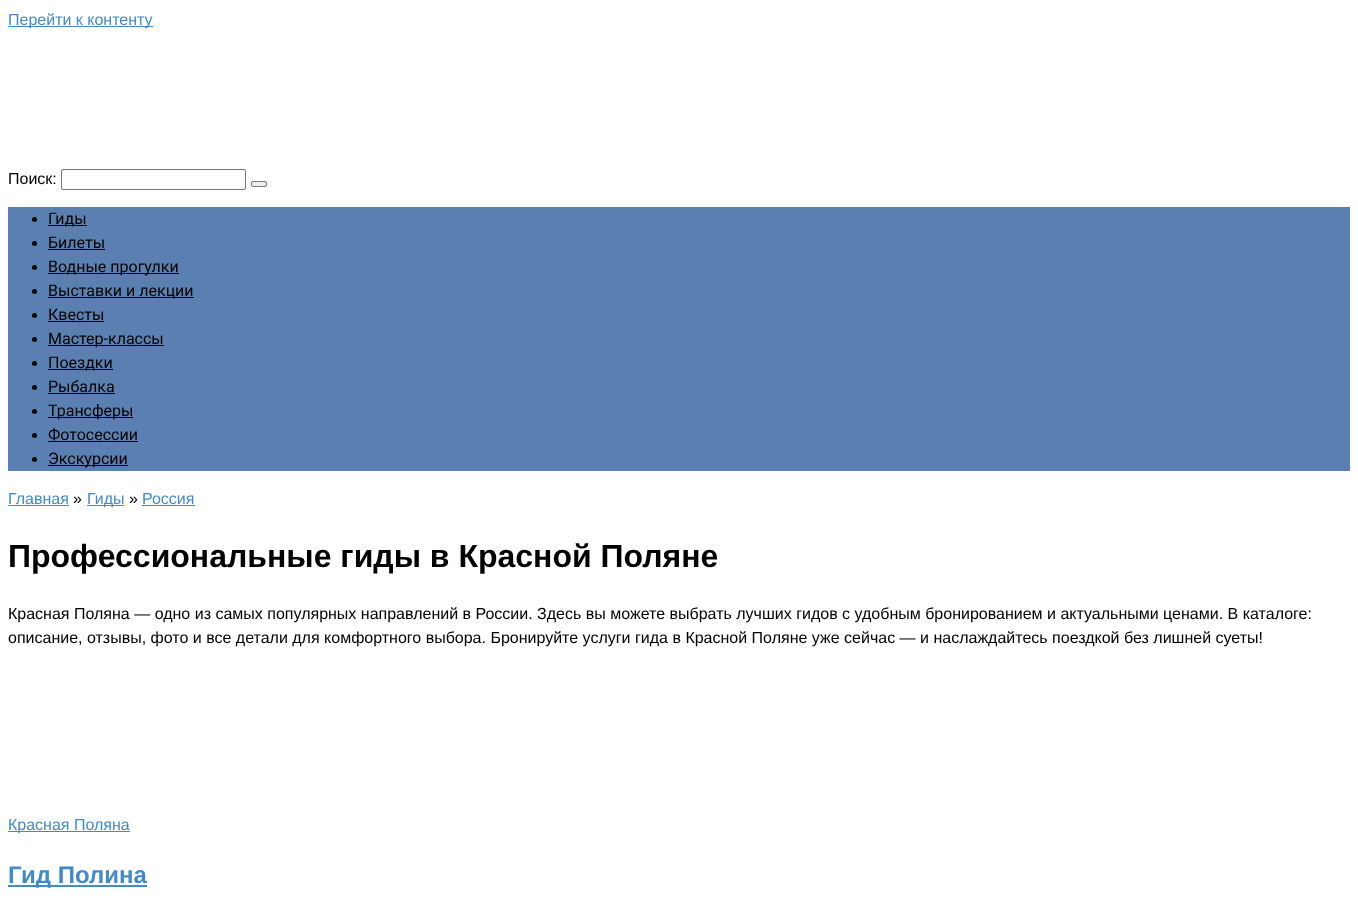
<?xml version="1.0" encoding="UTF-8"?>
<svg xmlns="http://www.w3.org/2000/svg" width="1358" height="905">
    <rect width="100%" height="100%" fill="#FFFFFF"/>
    <rect x="8" y="26" width="145" height="1" fill="#428BCA"/>
    <text x="8" y="25" font-family="Liberation Sans" font-size="16" fill="#428BCA">Перейти к контенту</text>
    <text x="8" y="184" font-family="Liberation Sans" font-size="16" fill="#000000">Поиск:</text>
    <rect x="61.5" y="169.5" width="184" height="20" rx="1.5" fill="none" stroke="#767676"/>
    <rect x="251.5" y="181.5" width="15" height="5" rx="1.5" fill="#EFEFEF" stroke="#767676"/>
    <rect x="8" y="207" width="1342" height="264" fill="#5A80B1"/>
    <circle cx="34.5" cy="219.5" r="2.5" fill="#000000"/>
    <rect x="48" y="225" width="39" height="1" fill="#000000"/>
    <text x="48" y="224" font-family="Roboto" font-size="16" fill="#000000">Гиды</text>
    <circle cx="34.5" cy="243.5" r="2.5" fill="#000000"/>
    <text x="48" y="248" font-family="Roboto" font-size="16" fill="#000000">Билеты</text>
    <rect x="48" y="249" width="57" height="1" fill="#000000"/>
    <circle cx="34.5" cy="267.5" r="2.5" fill="#000000"/>
    <rect x="48" y="273" width="131" height="1" fill="#000000"/>
    <text x="48" y="272" font-family="Roboto" font-size="16" fill="#000000">Водные прогулки</text>
    <circle cx="34.5" cy="291.5" r="2.5" fill="#000000"/>
    <rect x="48" y="297" width="146" height="1" fill="#000000"/>
    <text x="48" y="296" font-family="Roboto" font-size="16" fill="#000000">Выставки и лекции</text>
    <circle cx="34.5" cy="315.5" r="2.5" fill="#000000"/>
    <text x="48" y="320" font-family="Roboto" font-size="16" fill="#000000">Квесты</text>
    <rect x="48" y="321" width="56" height="1" fill="#000000"/>
    <circle cx="34.5" cy="339.5" r="2.5" fill="#000000"/>
    <rect x="48" y="345" width="116" height="1" fill="#000000"/>
    <text x="48" y="344" font-family="Roboto" font-size="16" fill="#000000">Мастер-классы</text>
    <circle cx="34.5" cy="363.5" r="2.5" fill="#000000"/>
    <rect x="48" y="369" width="65" height="1" fill="#000000"/>
    <text x="48" y="368" font-family="Roboto" font-size="16" fill="#000000">Поездки</text>
    <circle cx="34.5" cy="387.5" r="2.5" fill="#000000"/>
    <text x="48" y="392" font-family="Roboto" font-size="16" fill="#000000">Рыбалка</text>
    <rect x="48" y="393" width="67" height="1" fill="#000000"/>
    <circle cx="34.5" cy="411.5" r="2.5" fill="#000000"/>
    <rect x="48" y="417" width="85" height="1" fill="#000000"/>
    <text x="48" y="416" font-family="Roboto" font-size="16" fill="#000000">Трансферы</text>
    <circle cx="34.5" cy="435.5" r="2.5" fill="#000000"/>
    <text x="48" y="440" font-family="Roboto" font-size="16" fill="#000000">Фотосессии</text>
    <rect x="48" y="441" width="90" height="1" fill="#000000"/>
    <circle cx="34.5" cy="459.5" r="2.5" fill="#000000"/>
    <rect x="48" y="465" width="80" height="1" fill="#000000"/>
    <text x="48" y="464" font-family="Roboto" font-size="16" fill="#000000">Экскурсии</text>
    <text x="8" y="504" font-family="Liberation Sans" font-size="16" fill="#428BCA">Главная</text>
    <rect x="8" y="505" width="61" height="1" fill="#428BCA"/>
    <text x="73" y="504" font-family="Liberation Sans" font-size="16" fill="#000000">»</text>
    <rect x="87" y="505" width="37" height="1" fill="#428BCA"/>
    <text x="87" y="504" font-family="Liberation Sans" font-size="16" fill="#428BCA">Гиды</text>
    <text x="129" y="504" font-family="Liberation Sans" font-size="16" fill="#000000">»</text>
    <text x="142" y="504" font-family="Liberation Sans" font-size="16" fill="#428BCA">Россия</text>
    <rect x="142" y="505" width="53" height="1" fill="#428BCA"/>
    <text x="8" y="567" font-family="Liberation Sans" font-size="32" font-weight="700" fill="#000000">Профессиональные гиды в Красной Поляне</text>
    <text font-family="Liberation Sans" font-size="16" fill="#000000">
        <tspan x="8" y="619">Красная Поляна — одно из самых популярных направлений в России. Здесь вы можете выбрать лучших гидов с удобным бронированием и актуальными ценами. В каталоге:</tspan>
        <tspan x="8" y="643">описание, отзывы, фото и все детали для комфортного выбора. Бронируйте услуги гида в Красной Поляне уже сейчас — и наслаждайтесь поездкой без лишней суеты!</tspan>
    </text>
    <rect x="8" y="831" width="122" height="1" fill="#428BCA"/>
    <text x="8" y="830" font-family="Liberation Sans" font-size="16" fill="#428BCA">Красная Поляна</text>
    <rect x="8" y="885" width="139" height="2" fill="#428BCA"/>
    <text x="8" y="883" font-family="Liberation Sans" font-size="24" font-weight="700" fill="#428BCA">Гид Полина</text>
</svg>
